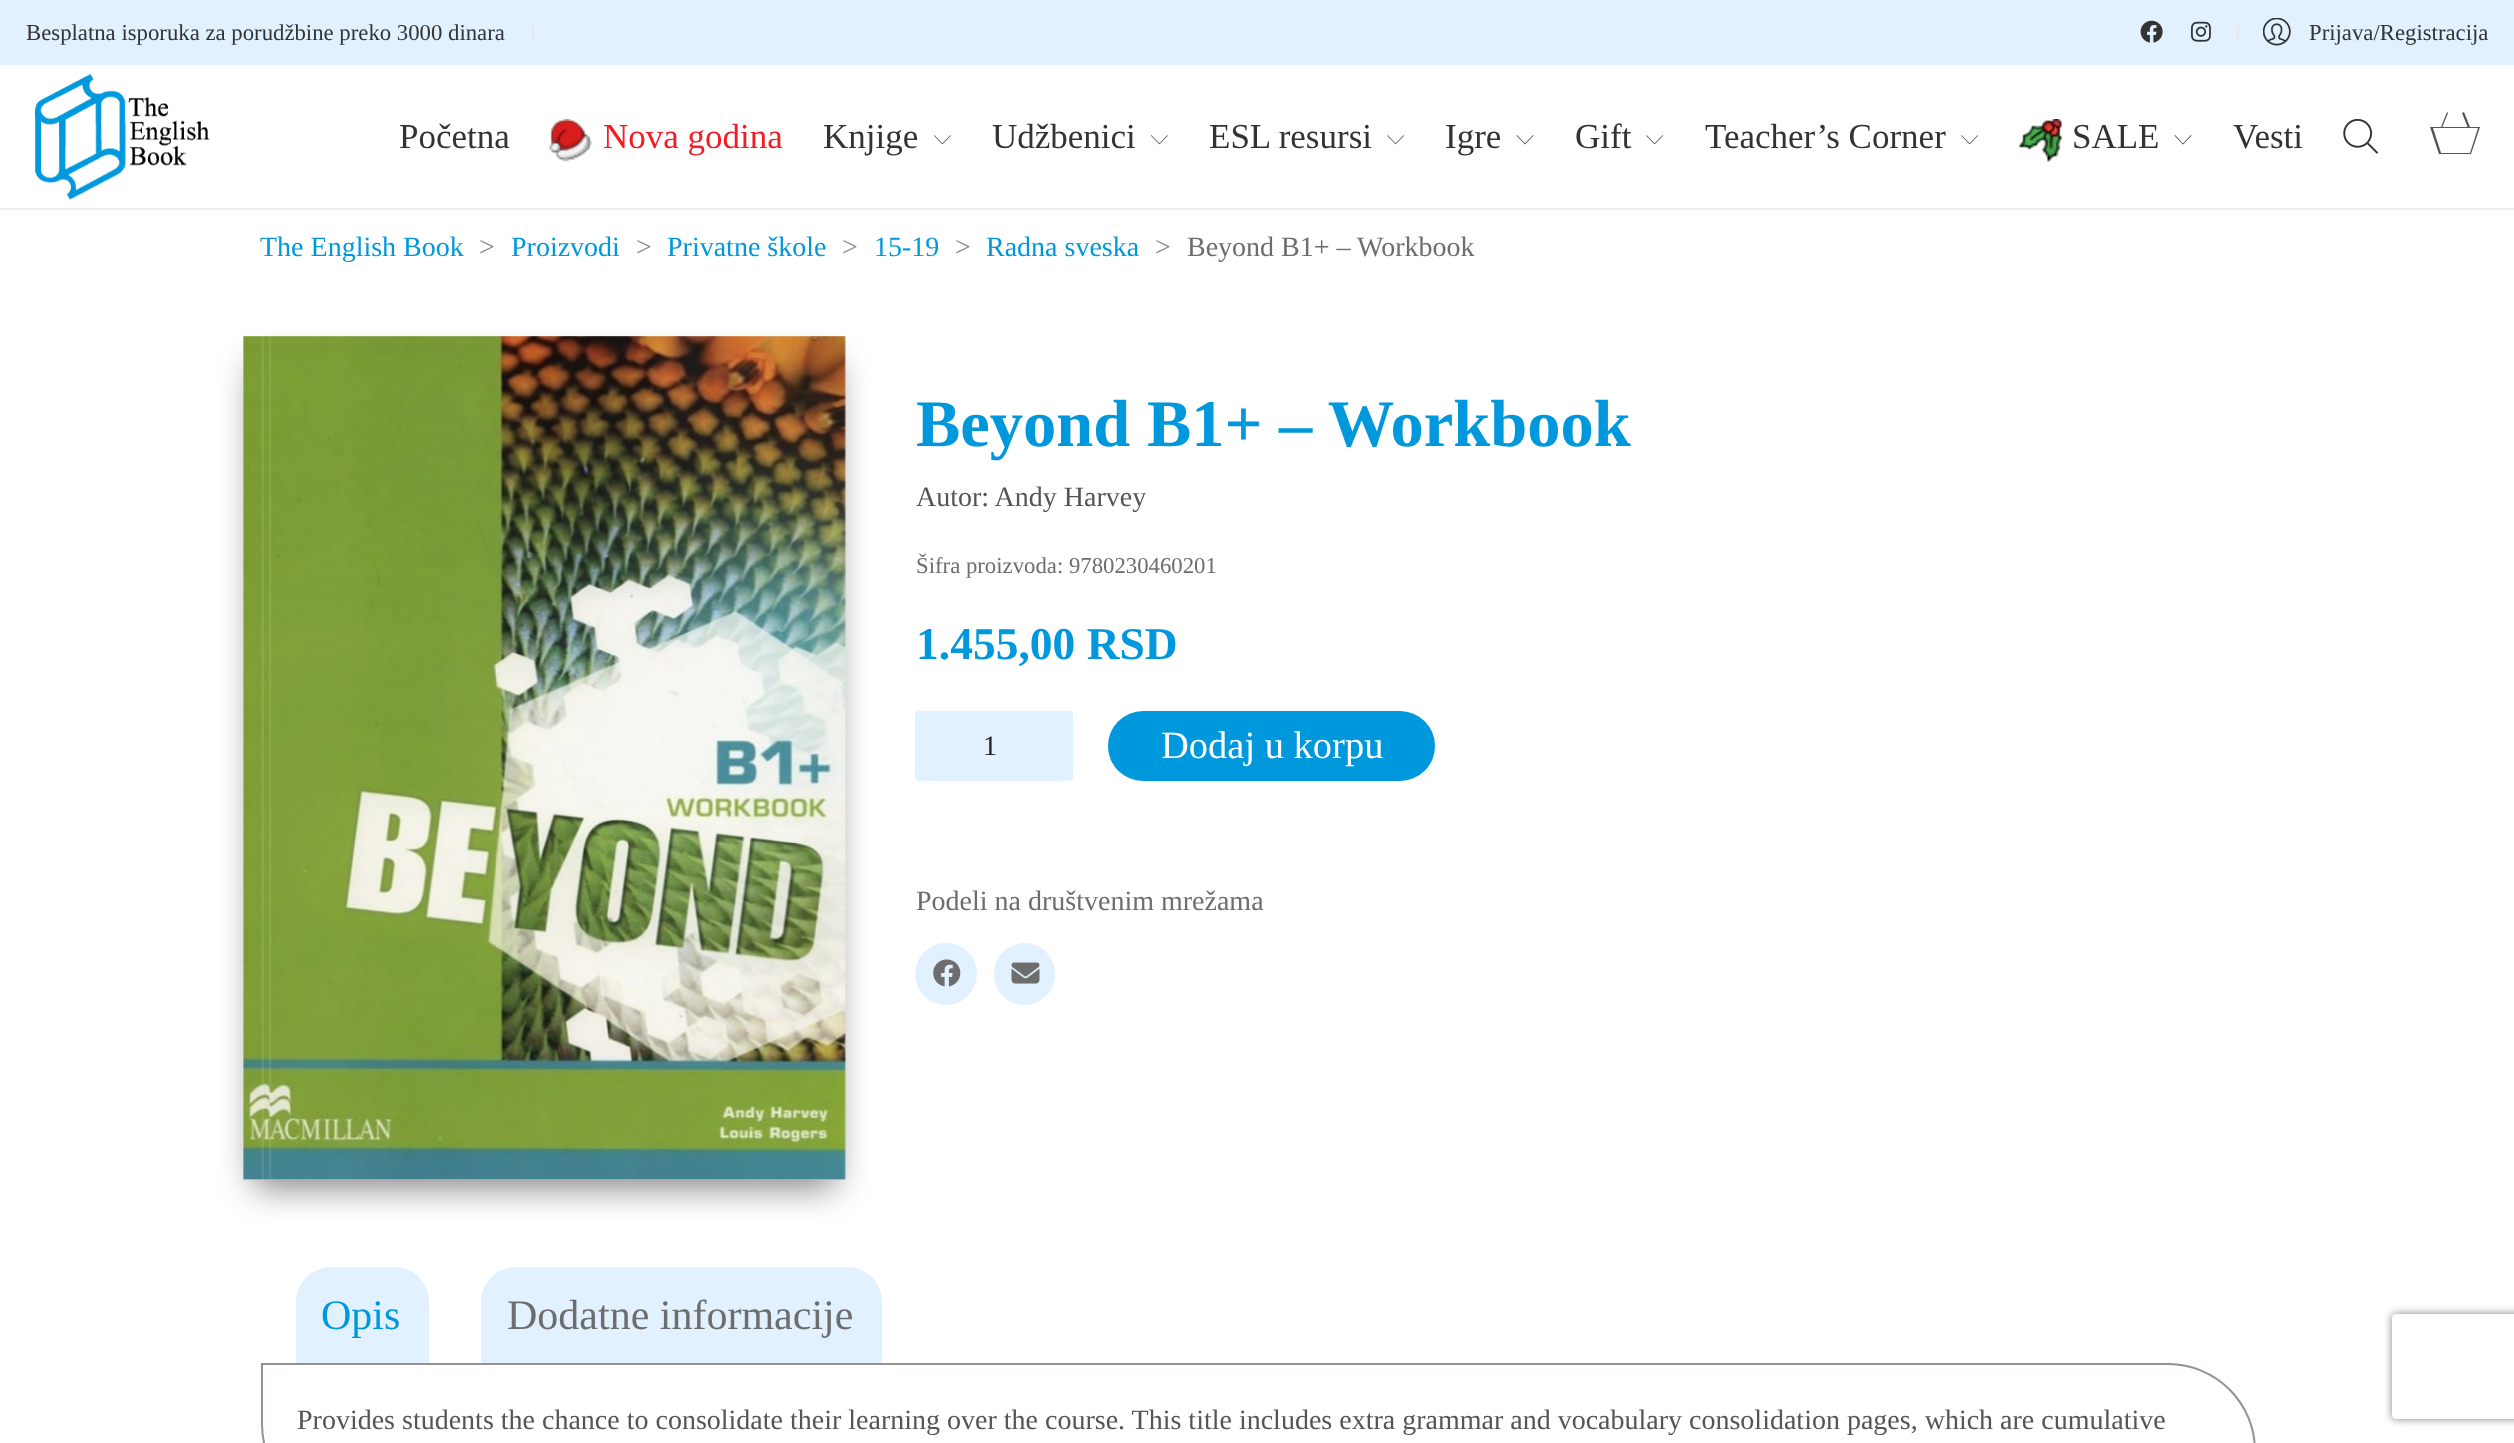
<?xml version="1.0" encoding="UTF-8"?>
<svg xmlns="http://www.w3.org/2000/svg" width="2514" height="1443">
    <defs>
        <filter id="blur1" x="-50%" y="-200%" width="200%" height="500%"><feGaussianBlur stdDeviation="17.5"/></filter>
        <clipPath id="clip1"><rect x="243" y="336" width="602" height="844"/></clipPath>
        <clipPath id="clip2"><path d="M 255 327 H 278 V 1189 H 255 Z M 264 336 H 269 V 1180 H 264 Z" clip-rule="evenodd"/></clipPath>
        <filter id="blur2" x="-50%" y="-200%" width="200%" height="500%"><feGaussianBlur stdDeviation="2.5"/></filter>
        <clipPath id="clip3"><path d="M 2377 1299 H 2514 V 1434 H 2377 Z M 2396 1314 H 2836 C 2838 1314 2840 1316 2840 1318 V 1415 C 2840 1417 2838 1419 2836 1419 H 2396 C 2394 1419 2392 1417 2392 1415 V 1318 C 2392 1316 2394 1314 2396 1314 Z" clip-rule="evenodd"/></clipPath>
        <filter id="blur3" x="-50%" y="-200%" width="200%" height="500%"><feGaussianBlur stdDeviation="4.5"/></filter>
    </defs>
    <rect width="100%" height="100%" fill="#FFFFFF"/>
    <rect x="0" y="208" width="2514" height="2" fill="#EDEDED"/>
    <rect x="0" y="0" width="2514" height="65" fill="#E2F1FF"/>
    <text x="26" y="40" font-family="Tinos" font-size="22.75" fill="#333333">Besplatna isporuka za porudžbine preko 3000 dinara</text>
    <rect x="532" y="25" width="2" height="17" fill="#E8E8E8"/>
    <image x="2140" y="20" width="23" height="23" href="img_01.png"/>
    <image x="2191" y="21" width="20" height="21" href="img_02.png"/>
    <rect x="2237" y="25" width="2" height="17" fill="#E8E8E8"/>
    <image x="2263" y="18" width="28" height="28" href="img_03.png"/>
    <text x="2309" y="40" font-family="Tinos" font-size="22.75" fill="#333333">Prijava/Registracija</text>
    <image x="35" y="74" width="175" height="126" href="img_04.png"/>
    <text x="399" y="148" font-family="Tinos" font-size="35" fill="#333333">Početna</text>
    <image x="549" y="119" width="43" height="43" href="img_05.png"/>
    <text x="603" y="148" font-family="Tinos" font-size="35" fill="#F41B24">Nova godina</text>
    <text x="823" y="148" font-family="Tinos" font-size="35" fill="#333333">Knjige</text>
    <image x="934" y="135" width="17" height="10" href="img_06.png"/>
    <text x="992" y="148" font-family="Tinos" font-size="35" fill="#333333">Udžbenici</text>
    <image x="1151" y="135" width="17" height="10" href="img_06.png"/>
    <text x="1209" y="148" font-family="Tinos" font-size="35" fill="#333333">ESL resursi</text>
    <image x="1387" y="135" width="17" height="10" href="img_07.png"/>
    <text x="1445" y="148" font-family="Tinos" font-size="35" fill="#333333">Igre</text>
    <path d="M 1525 144.5 L 1516.5 135.5 L 1517 135 L 1525 143.5 L 1533 135 L 1533.5 135.5 Z" fill="#333333"/>
    <text x="1575" y="148" font-family="Tinos" font-size="35" fill="#333333">Gift</text>
    <image x="1646" y="135" width="17" height="10" href="img_07.png"/>
    <text x="1705" y="148" font-family="Tinos" font-size="35" fill="#333333">Teacher’s Corner</text>
    <image x="1961" y="135" width="17" height="10" href="img_07.png"/>
    <image x="2019" y="119" width="43" height="43" href="img_08.png"/>
    <text x="2072" y="148" font-family="Tinos" font-size="35" fill="#333333">SALE</text>
    <path d="M 2183 144.5 L 2174.5 135.5 L 2175 135 L 2183 143.5 L 2191 135 L 2191.5 135.5 Z" fill="#333333"/>
    <text x="2233" y="148" font-family="Tinos" font-size="35" fill="#333333">Vesti</text>
    <image x="2343" y="119" width="35" height="35" href="img_09.png"/>
    <path d="M 2471 154 L 2480 127 H 2430 L 2439 154 Z M 2441 153 L 2433 128 H 2478 L 2470 153 Z M 2447 112 L 2441 127 L 2442 128 L 2448 113 Z M 2464 112 L 2462 113 L 2468 128 L 2470 127 Z" fill="#555555"/>
    <text x="260" y="256" font-family="Tinos" font-size="28" fill="#0098DD">The English Book</text>
    <text x="479" y="256" font-family="Tinos" font-size="28" fill="#888888">&gt;</text>
    <text x="511" y="256" font-family="Tinos" font-size="28" fill="#0098DD">Proizvodi</text>
    <text x="636" y="256" font-family="Tinos" font-size="28" fill="#888888">&gt;</text>
    <text x="667" y="256" font-family="Tinos" font-size="28" fill="#0098DD">Privatne škole</text>
    <text x="842" y="256" font-family="Tinos" font-size="28" fill="#888888">&gt;</text>
    <text x="874" y="256" font-family="Tinos" font-size="28" fill="#0098DD">15-19</text>
    <text x="955" y="256" font-family="Tinos" font-size="28" fill="#888888">&gt;</text>
    <text x="986" y="256" font-family="Tinos" font-size="28" fill="#0098DD">Radna sveska</text>
    <text x="1155" y="256" font-family="Tinos" font-size="28" fill="#888888">&gt;</text>
    <text x="1187" y="256" font-family="Tinos" font-size="28" fill="#6D6D6D">Beyond B1+ – Workbook</text>
    <rect x="254" y="364" width="581" height="823" fill="#000000" fill-opacity="0.5" filter="url(#blur1)"/>
    <rect x="243" y="336" width="602" height="844" fill="#F7F7F7"/>
    <g clip-path="url(#clip1)">
        <rect x="254" y="364" width="581" height="823" fill="#000000" fill-opacity="0.2" filter="url(#blur1)"/>
    </g>
    <image x="243" y="336" width="603" height="844" href="img_10.png"/>
    <g clip-path="url(#clip1)">
        <g clip-path="url(#clip2)">
            <rect x="264" y="336" width="5" height="844" fill="#FFFFFF" fill-opacity="0.25" filter="url(#blur2)"/>
        </g>
    </g>
    <text x="916" y="446" font-family="Tinos" font-size="66.5" font-weight="700" fill="#0098DD">Beyond B1+ – Workbook</text>
    <text x="916" y="506" font-family="Tinos" font-size="28" fill="#555555">Autor: Andy Harvey</text>
    <text x="916" y="573" font-family="Tinos" font-size="22.75" fill="#6D6D6D">Šifra proizvoda: 9780230460201</text>
    <text x="916" y="659" font-family="Tinos" font-size="45.5" font-weight="700" fill="#0098DD">1.455,00 RSD</text>
    <rect x="915" y="711" width="158" height="70" rx="4" fill="#E2F1FF"/>
    <text x="983" y="755" font-family="Tinos" font-size="28" fill="#222222">1</text>
    <rect x="1108" y="711" width="327" height="70" rx="35" fill="#0098DD"/>
    <text x="1161" y="758" font-family="Tinos" font-size="38.5" fill="#FFFFFF">Dodaj u korpu</text>
    <text x="916" y="910" font-family="Tinos" font-size="28" fill="#6D6D6D">Podeli na društvenim mrežama</text>
    <circle cx="946" cy="974" r="31" fill="#E2F1FF"/>
    <image x="933" y="959" width="28" height="28" href="img_11.png"/>
    <rect x="994" y="943" width="61" height="62" rx="30.5" fill="#E2F1FF"/>
    <image x="1011" y="962" width="29" height="22" href="img_12.png"/>
    <path d="M 331 1267 H 394 C 413.5 1267 429 1282.5 429 1302 V 1363 H 296 V 1302 C 296 1282.5 311.5 1267 331 1267 Z" fill="#E2F1FF"/>
    <text x="321" y="1329" font-family="Tinos" font-size="42" fill="#0098DD">Opis</text>
    <path d="M 516 1267 H 847 C 866.5 1267 882 1282.5 882 1302 V 1363 H 481 V 1302 C 481 1282.5 496.5 1267 516 1267 Z" fill="#E2F1FF"/>
    <text x="507" y="1329" font-family="Tinos" font-size="42" fill="#6D6D6D">Dodatne informacije</text>
    <path d="M 262 1364 H 2168 C 2216 1364 2255 1403 2255 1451 V 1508 C 2255 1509.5 2253.5 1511 2252 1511 H 349 C 301 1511 262 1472 262 1424 Z" fill="none" stroke="#979090" stroke-width="2"/>
    <text x="297" y="1429" font-family="Tinos" font-size="28" fill="#555555">Provides students the chance to consolidate their learning over the course. This title includes extra grammar and vocabulary consolidation pages, which are cumulative</text>
    <g clip-path="url(#clip3)">
        <rect x="2392" y="1314" width="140" height="105" rx="4" fill="#808080" filter="url(#blur3)"/>
    </g>
</svg>
